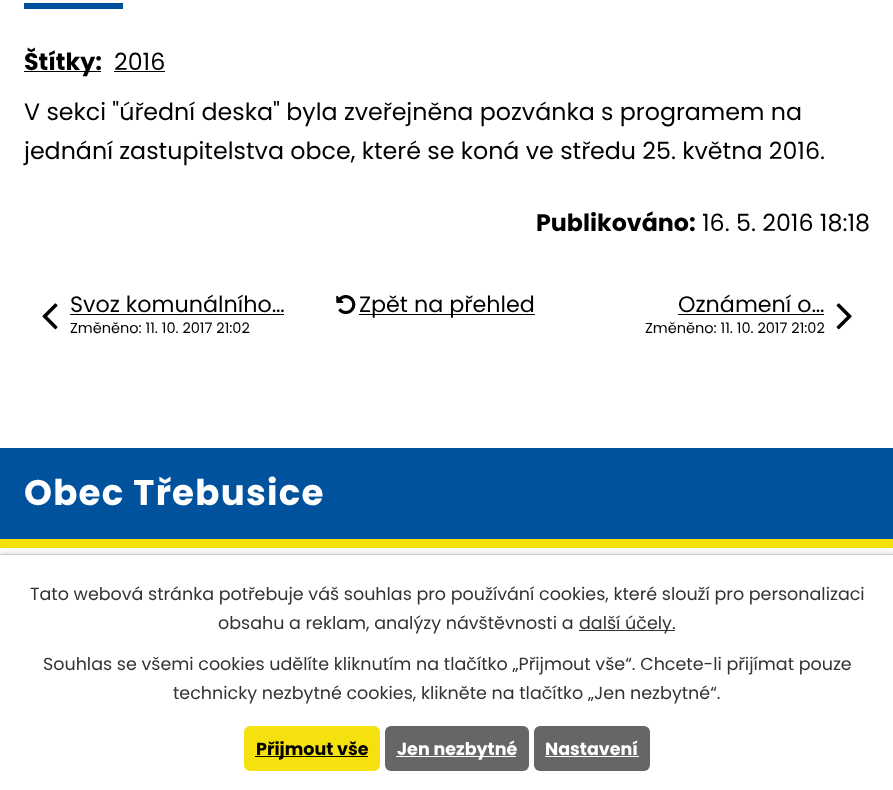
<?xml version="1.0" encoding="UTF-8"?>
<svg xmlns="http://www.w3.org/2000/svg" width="893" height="790">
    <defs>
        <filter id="blur1" x="-50%" y="-200%" width="200%" height="500%"><feGaussianBlur stdDeviation="3"/></filter>
    </defs>
    <rect width="100%" height="100%" fill="#FFFFFF"/>
    <rect x="24" y="3" width="99" height="6" fill="#00529D"/>
    <rect x="24" y="71" width="77" height="1" fill="#000000"/>
    <text x="24" y="70" font-family="Poppins" font-size="23.75" font-weight="700" fill="#000000">Štítky:</text>
    <text x="114" y="70" font-family="Poppins" font-size="23.75" fill="#000000">2016</text>
    <rect x="114" y="71" width="51" height="1" fill="#000000"/>
    <text font-family="Poppins" font-size="23.75" fill="#000000">
        <tspan x="24" y="120">V sekci "úřední deska" byla zveřejněna pozvánka s programem na</tspan>
        <tspan x="24" y="159">jednání zastupitelstva obce, které se koná ve středu 25. května 2016.</tspan>
    </text>
    <text x="536" y="231" font-family="Poppins" font-size="23.75" font-weight="700" fill="#000000">Publikováno:</text>
    <text x="702" y="231" font-family="Poppins" font-size="23.75" fill="#000000">16. 5. 2016 18:18</text>
    <image x="42" y="303" width="16" height="27" href="img_01.png"/>
    <text x="70" y="312" font-family="Poppins" font-size="22.25" fill="#000000">Svoz komunálního…</text>
    <rect x="70" y="314" width="214" height="1" fill="#000000"/>
    <text x="70" y="333" font-family="Poppins" font-size="14.5" fill="#000000">Změněno: 11. 10. 2017 21:02</text>
    <image x="336" y="295" width="20" height="20" href="img_02.png"/>
    <rect x="359" y="314" width="176" height="1" fill="#000000"/>
    <text x="359" y="312" font-family="Poppins" font-size="22.25" fill="#000000">Zpět na přehled</text>
    <text x="678" y="312" font-family="Poppins" font-size="22.25" fill="#000000">Oznámení o…</text>
    <rect x="678" y="314" width="146" height="1" fill="#000000"/>
    <text x="645" y="333" font-family="Poppins" font-size="14.5" fill="#000000">Změněno: 11. 10. 2017 21:02</text>
    <image x="836" y="303" width="16" height="27" href="img_03.png"/>
    <rect x="0" y="448" width="893" height="91" fill="#00529D"/>
    <rect x="0" y="539" width="893" height="9" fill="#F5E10E"/>
    <text x="24" y="505" font-family="Poppins" font-size="35.6" font-weight="700" letter-spacing="1.25" fill="#FFFFFF">Obec Třebusice</text>
    <rect x="0" y="554" width="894" height="236" fill="#000000" fill-opacity="0.2" filter="url(#blur1)"/>
    <rect x="0" y="555" width="893" height="235" fill="#FFFFFF"/>
    <rect x="0" y="554" width="893" height="1" fill="#CCCCCC"/>
    <text x="30" y="600" font-family="Poppins" font-size="17.5" fill="#333333">Tato webová stránka potřebuje váš souhlas pro používání cookies, které slouží pro personalizaci</text>
    <text x="218" y="629" font-family="Poppins" font-size="17.5" fill="#333333">obsahu a reklam, analýzy návštěvnosti a</text>
    <rect x="579" y="630" width="96" height="1" fill="#333333"/>
    <text x="579" y="629" font-family="Poppins" font-size="17.5" fill="#333333">další účely.</text>
    <text x="43" y="670" font-family="Poppins" font-size="17.5" fill="#333333">Souhlas se všemi cookies udělíte kliknutím na tlačítko „Přijmout vše“. Chcete-li přijímat pouze</text>
    <text x="173" y="699" font-family="Poppins" font-size="17.5" fill="#333333">technicky nezbytné cookies, klikněte na tlačítko „Jen nezbytné“.</text>
    <rect x="244" y="726" width="136" height="45" rx="6" fill="#F5E10E"/>
    <rect x="255" y="756" width="113" height="1" fill="#000000"/>
    <text x="256" y="755" font-family="Poppins" font-size="17.5" font-weight="700" fill="#000000">Přijmout vše</text>
    <rect x="385" y="726" width="144" height="45" rx="6" fill="#666666"/>
    <rect x="396" y="756" width="120" height="1" fill="#FFFFFF"/>
    <text x="397" y="755" font-family="Poppins" font-size="17.5" font-weight="700" fill="#FFFFFF">Jen nezbytné</text>
    <rect x="534" y="726" width="116" height="45" rx="6" fill="#666666"/>
    <text x="545" y="755" font-family="Poppins" font-size="17.5" font-weight="700" fill="#FFFFFF">Nastavení</text>
    <rect x="545" y="756" width="94" height="1" fill="#FFFFFF"/>
</svg>
